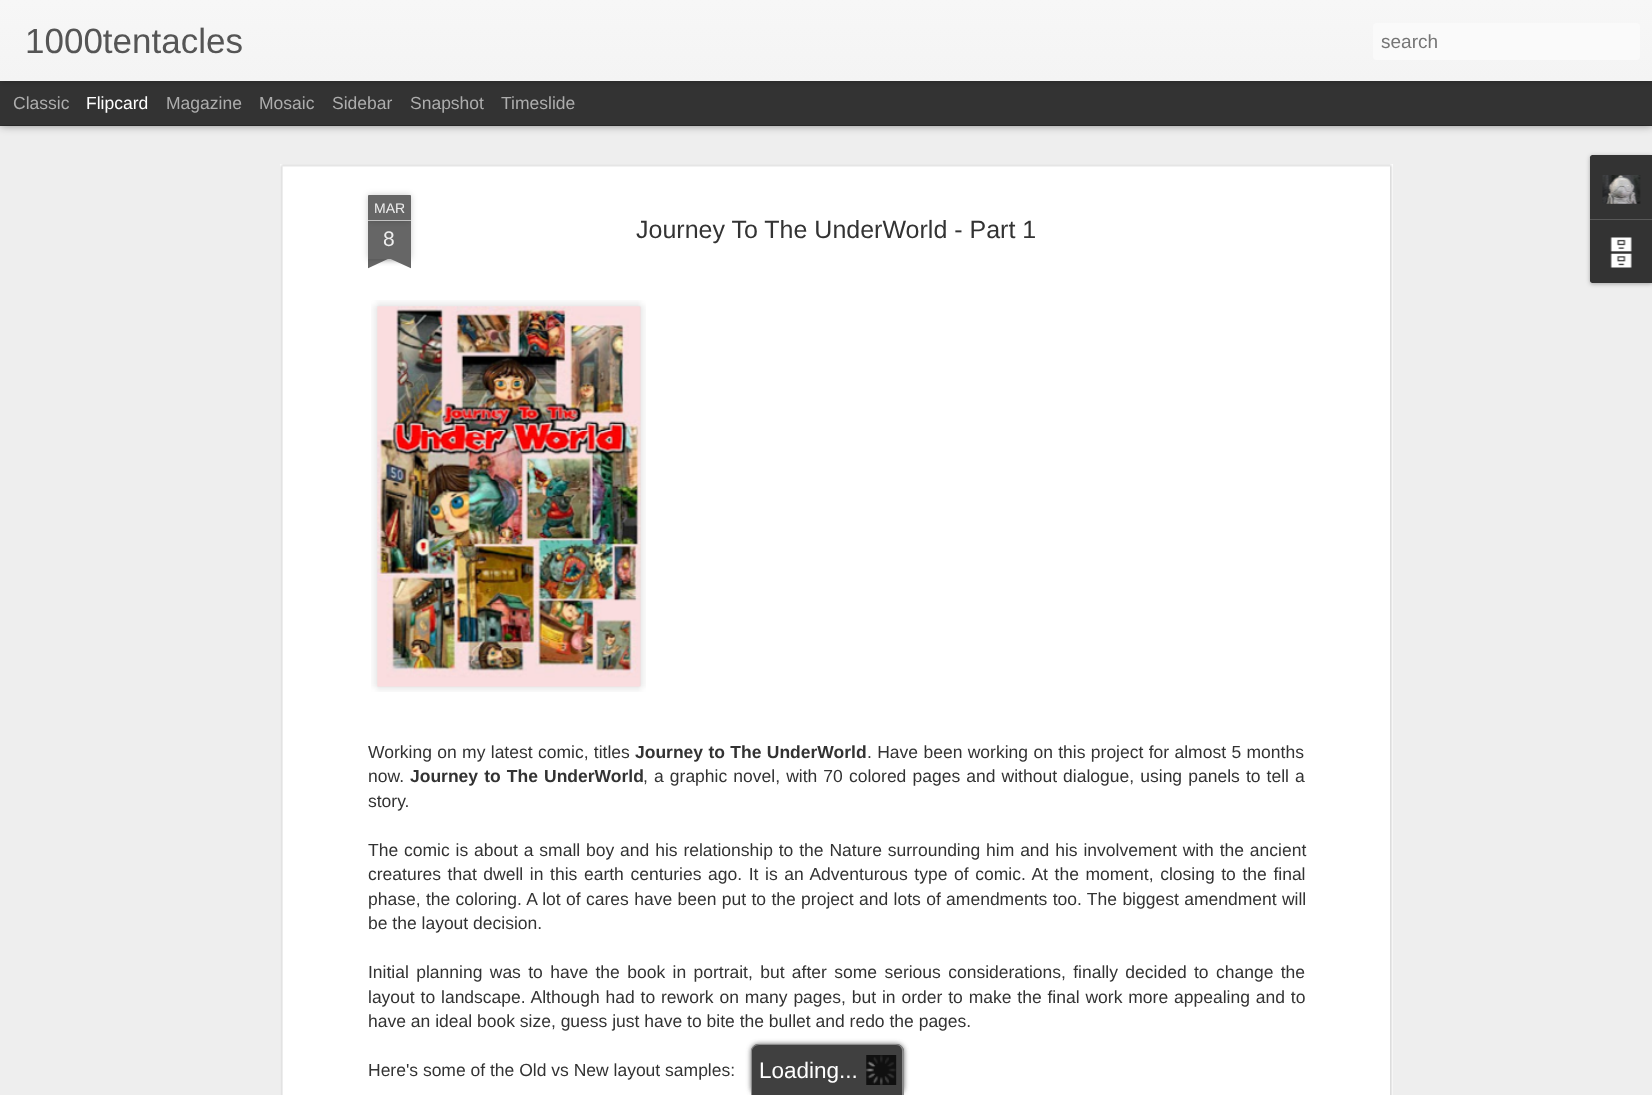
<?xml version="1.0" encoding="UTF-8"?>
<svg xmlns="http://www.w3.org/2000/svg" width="1652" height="1095">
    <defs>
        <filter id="blur1" x="-50%" y="-200%" width="200%" height="500%"><feGaussianBlur stdDeviation="5"/></filter>
        <filter id="blur2" x="-50%" y="-200%" width="200%" height="500%"><feGaussianBlur stdDeviation="3"/></filter>
        <linearGradient id="g1" gradientUnits="userSpaceOnUse" x1="0" y1="0" x2="0" y2="81"><stop offset="0" stop-color="#F7F7F7"/><stop offset="1" stop-color="#F4F4F4"/></linearGradient>
        <clipPath id="clip1"><rect x="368" y="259" width="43" height="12"/></clipPath>
        <clipPath id="clip2"><rect x="368" y="259" width="43" height="12"/></clipPath>
        <filter id="blur3" x="-50%" y="-200%" width="200%" height="500%"><feGaussianBlur stdDeviation="2"/></filter>
        <filter id="blur4" x="-50%" y="-200%" width="200%" height="500%"><feGaussianBlur stdDeviation="2.5"/></filter>
    </defs>
    <rect width="100%" height="100%" fill="#333333"/>
    <rect x="0" y="126" width="1652" height="969" fill="#EEEEEE"/>
    <rect x="0" y="81" width="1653" height="44" fill="#000000" fill-opacity="0.5" filter="url(#blur1)"/>
    <rect x="0" y="81" width="1652" height="44" fill="#333333"/>
    <rect x="0" y="0" width="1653" height="81" fill="#000000" fill-opacity="0.3" filter="url(#blur2)"/>
    <rect x="0" y="0" width="1652" height="81" fill="url(#g1)"/>
    <text x="25" y="53" font-family="Liberation Sans" font-size="35" fill="#555555">1000tentacles</text>
    <rect x="1373" y="23" width="267" height="37" rx="4" fill="#FAFAFA"/>
    <text x="1381" y="48" font-family="Liberation Sans" font-size="19" fill="#757575">search</text>
    <text x="13" y="109" font-family="Liberation Sans" font-size="17.5" fill="#ADADAD">Classic</text>
    <text x="86" y="109" font-family="Liberation Sans" font-size="17.5" fill="#FFFFFF">Flipcard</text>
    <text x="166" y="109" font-family="Liberation Sans" font-size="17.5" fill="#ADADAD">Magazine</text>
    <text x="259" y="109" font-family="Liberation Sans" font-size="17.5" fill="#ADADAD">Mosaic</text>
    <text x="332" y="109" font-family="Liberation Sans" font-size="17.5" fill="#ADADAD">Sidebar</text>
    <text x="410" y="109" font-family="Liberation Sans" font-size="17.5" fill="#ADADAD">Snapshot</text>
    <text x="501" y="109" font-family="Liberation Sans" font-size="17.5" fill="#ADADAD">Timeslide</text>
    <rect x="280" y="164" width="1113" height="931" fill="#FFFFFF"/>
    <image x="280" y="164" width="1113" height="931" href="img_01.png"/>
    <rect x="368" y="221" width="43" height="38" fill="#000000" fill-opacity="0.2" filter="url(#blur2)"/>
    <rect x="368" y="221" width="43" height="38" fill="#666666"/>
    <rect x="368" y="195" width="43" height="26" rx="1" fill="#000000" fill-opacity="0.2" filter="url(#blur2)"/>
    <path d="M 369 195 H 410 C 410.5 195 411 195.5 411 196 V 221 H 368 V 196 C 368 195.5 368.5 195 369 195 Z" fill="#666666"/>
    <rect x="368" y="220" width="43" height="1" fill="#C2C2C2"/>
    <text x="374" y="213" font-family="Liberation Sans" font-size="14" fill="#EEEEEE">MAR</text>
    <text x="383" y="246" font-family="Liberation Sans" font-size="21" fill="#EEEEEE">8</text>
    <g clip-path="url(#clip1)">
        <rect x="356" y="246" width="63" height="13" fill="#000000" fill-opacity="0.2" filter="url(#blur2)"/>
    </g>
    <g clip-path="url(#clip2)">
        <path d="M 357 260 L 413 234 L 418 245 L 362 271 Z" fill="#666666"/>
    </g>
    <g clip-path="url(#clip1)">
        <rect x="360" y="246" width="63" height="13" fill="#000000" fill-opacity="0.2" filter="url(#blur2)"/>
    </g>
    <g clip-path="url(#clip2)">
        <path d="M 366 234 L 422 260 L 417 271 L 360 245 Z" fill="#666666"/>
    </g>
    <text x="636" y="238" font-family="Liberation Sans" font-size="25" fill="#333333">Journey To The UnderWorld - Part 1</text>
    <image x="371" y="300" width="275" height="392" href="img_02.png"/>
    <image x="377" y="307" width="264" height="380" href="img_03.png"/>
    <text x="368" y="758" word-spacing="0.5" font-family="Liberation Sans" font-size="17.5" fill="#333333">Working on my latest comic, titles</text>
    <text x="635" y="758" word-spacing="0.5" font-family="Liberation Sans" font-size="17.5" font-weight="700" fill="#333333">Journey to The UnderWorld</text>
    <text x="867" y="758" word-spacing="0.5" font-family="Liberation Sans" font-size="17.5" fill="#333333">. Have been working on this project for almost 5 months</text>
    <text x="368" y="782" font-family="Liberation Sans" font-size="17.5" fill="#333333">now.</text>
    <text x="410" y="782" word-spacing="1.25" font-family="Liberation Sans" font-size="17.5" font-weight="700" fill="#333333">Journey to The UnderWorld</text>
    <text x="643" y="782" word-spacing="1.25" font-family="Liberation Sans" font-size="17.5" fill="#333333">, a graphic novel, with 70 colored pages and without dialogue, using panels to tell a</text>
    <text x="368" y="807" font-family="Liberation Sans" font-size="17.5" fill="#333333">story.</text>
    <text font-family="Liberation Sans" font-size="17.5" fill="#333333">
        <tspan x="368" y="856" word-spacing="1">The comic is about a small boy and his relationship to the Nature surrounding him and his involvement with the ancient</tspan>
        <tspan x="368" y="880" word-spacing="1.75">creatures that dwell in this earth centuries ago. It is an Adventurous type of comic. At the moment, closing to the final</tspan>
        <tspan x="368" y="905" word-spacing="0.5">phase, the coloring. A lot of cares have been put to the project and lots of amendments too. The biggest amendment will</tspan>
        <tspan x="368" y="929">be the layout decision.</tspan>
    </text>
    <text font-family="Liberation Sans" font-size="17.5" fill="#333333">
        <tspan x="368" y="978" word-spacing="2.5">Initial planning was to have the book in portrait, but after some serious considerations, finally decided to change the</tspan>
        <tspan x="368" y="1003" word-spacing="1">layout to landscape. Although had to rework on many pages, but in order to make the final work more appealing and to</tspan>
        <tspan x="368" y="1027">have an ideal book size, guess just have to bite the bullet and redo the pages.</tspan>
    </text>
    <text x="368" y="1076" font-family="Liberation Sans" font-size="17.5" fill="#333333">Here's some of the Old vs New layout samples:</text>
    <rect x="1590" y="156" width="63" height="128" rx="2.5" fill="#000000" fill-opacity="0.3" filter="url(#blur3)"/>
    <path d="M 1592.5 155 H 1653 V 219 H 1590 V 157.5 C 1590 156 1591 155 1592.5 155 Z" fill="#333333"/>
    <image x="1602" y="175" width="39" height="29" href="img_04.png"/>
    <path d="M 1590 219 H 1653 V 283 H 1592.5 C 1591 283 1590 282 1590 280.5 Z" fill="#333333"/>
    <rect x="1590" y="219" width="62" height="1" fill="#585858"/>
    <image x="1610" y="237" width="22" height="31" href="img_05.png"/>
    <rect x="751" y="1044" width="153" height="51" rx="8" fill="#666666" filter="url(#blur4)"/>
    <path d="M 759 1044 H 896 C 900.5 1044 904 1047.5 904 1052 V 1095 H 751 V 1052 C 751 1047.5 754.5 1044 759 1044 Z" fill="#404040"/>
    <path d="M 759 1044 H 896 C 900 1044 904 1047 904 1051 V 1095 H 751 V 1051 C 751 1047 755 1044 759 1044 Z M 759 1045 H 896 C 900 1045 902 1048 902 1051 V 1095 H 752 V 1051 C 752 1048 755 1045 759 1045 Z" fill="#8C8C8C" fill-rule="evenodd"/>
    <image x="866" y="1055" width="31" height="30" href="img_06.png"/>
    <text x="759" y="1078" font-family="Liberation Sans" font-size="22.5" fill="#FFFFFF">Loading...</text>
</svg>
